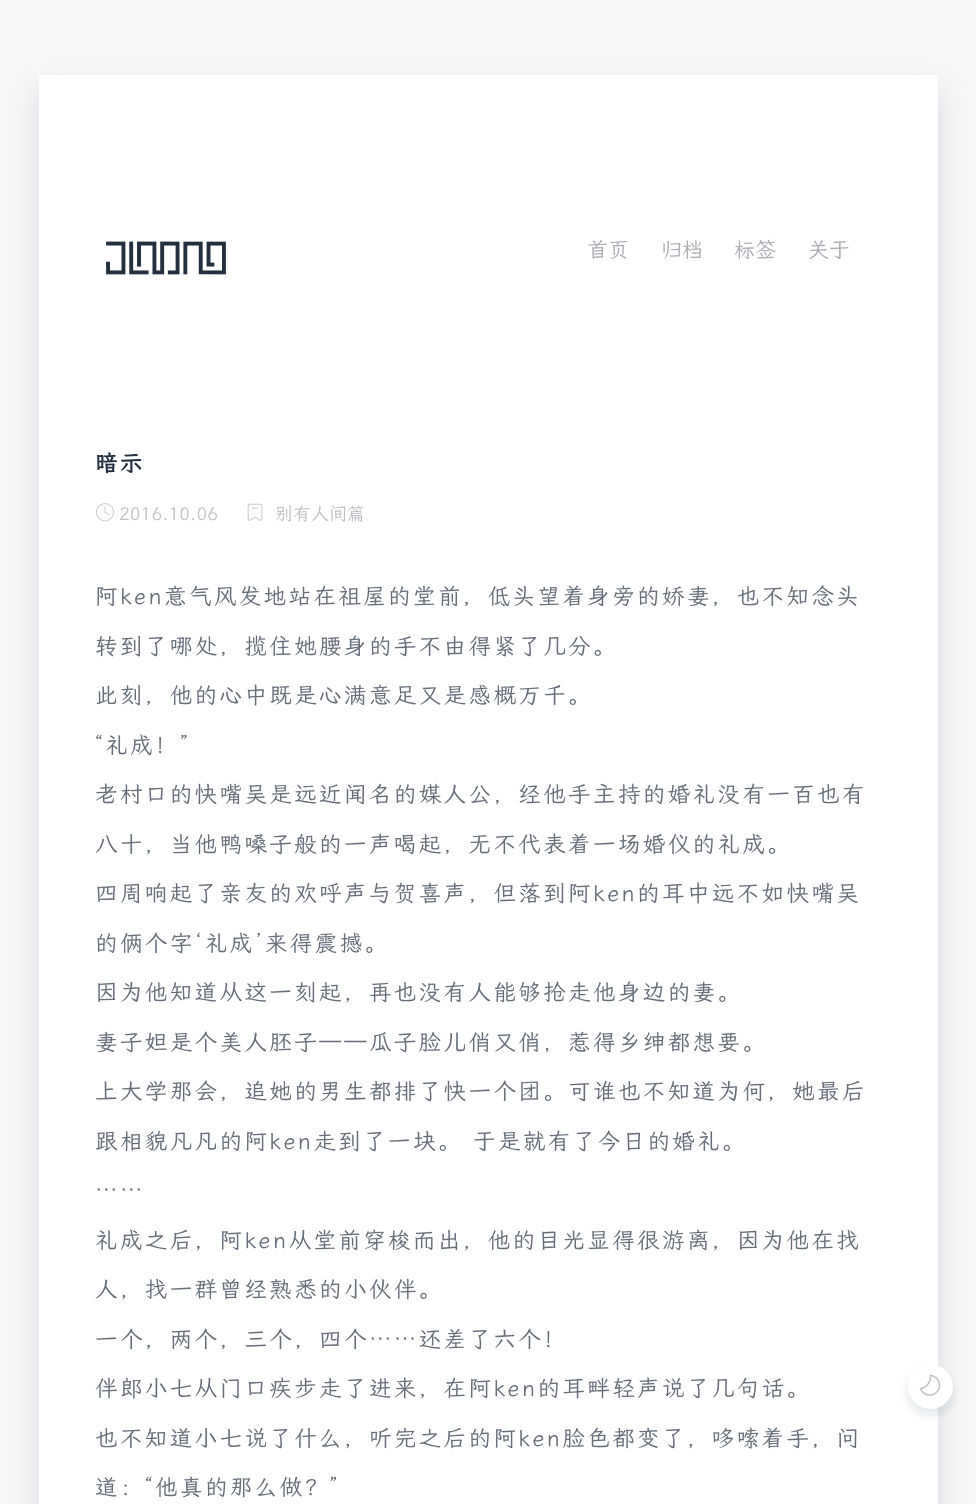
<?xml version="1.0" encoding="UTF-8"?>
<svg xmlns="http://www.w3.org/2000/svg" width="976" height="1504">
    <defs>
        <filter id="blur1" x="-50%" y="-200%" width="200%" height="500%"><feGaussianBlur stdDeviation="15"/></filter>
        <filter id="blur2" x="-50%" y="-200%" width="200%" height="500%"><feGaussianBlur stdDeviation="4"/></filter>
    </defs>
    <rect width="100%" height="100%" fill="#F7F7F7"/>
    <rect x="39" y="90" width="899" height="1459" fill="#222F3E" fill-opacity="0.12" filter="url(#blur1)"/>
    <rect x="39" y="75" width="899" height="1429" fill="#FFFFFF"/>
    <image x="106" y="241" width="120" height="34" href="img_01.png"/>
    <text x="587" y="257" font-family="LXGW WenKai" font-size="21" fill="#A7ACB2">首页</text>
    <text x="661" y="257" font-family="LXGW WenKai" font-size="21" fill="#A7ACB2">归档</text>
    <text x="734" y="257" font-family="LXGW WenKai" font-size="21" fill="#A7ACB2">标签</text>
    <text x="808" y="257" font-family="LXGW WenKai" font-size="21" fill="#A7ACB2">关于</text>
    <text x="95" y="471" font-family="LXGW WenKai" font-size="22.5" font-weight="700" letter-spacing="2" fill="#222F3E">暗示</text>
    <image x="96" y="503" width="18" height="19" href="img_02.png"/>
    <text x="119" y="520" font-family="LXGW WenKai" font-size="18" fill="#BDC1C5">2016.10.06</text>
    <image x="247" y="503" width="16" height="18" href="img_03.png"/>
    <text x="275" y="520" font-family="LXGW WenKai" font-size="18" fill="#BDC1C5">别有人间篇</text>
    <text x="95" y="604" font-family="LXGW WenKai" font-size="22.5" letter-spacing="2.4" fill="#646D78">阿ken意气风发地站在祖屋的堂前，低头望着身旁的娇妻，也不知念头</text>
    <text x="95" y="654" font-family="LXGW WenKai" font-size="22.5" letter-spacing="2.4" fill="#646D78">转到了哪处，揽住她腰身的手不由得紧了几分。</text>
    <text x="95" y="703" font-family="LXGW WenKai" font-size="22.5" letter-spacing="2.4" fill="#646D78">此刻，他的心中既是心满意足又是感概万千。</text>
    <text x="95" y="753" font-family="LXGW WenKai" font-size="22.5" letter-spacing="2.4" fill="#646D78">“礼成！”</text>
    <text x="95" y="802" font-family="LXGW WenKai" font-size="22.5" letter-spacing="2.4" fill="#646D78">老村口的快嘴吴是远近闻名的媒人公，经他手主持的婚礼没有一百也有</text>
    <text x="95" y="852" font-family="LXGW WenKai" font-size="22.5" letter-spacing="2.4" fill="#646D78">八十，当他鸭嗓子般的一声喝起，无不代表着一场婚仪的礼成。</text>
    <text x="95" y="901" font-family="LXGW WenKai" font-size="22.5" letter-spacing="2.4" fill="#646D78">四周响起了亲友的欢呼声与贺喜声，但落到阿ken的耳中远不如快嘴吴</text>
    <text x="95" y="951" font-family="LXGW WenKai" font-size="22.5" letter-spacing="2.4" fill="#646D78">的俩个字‘礼成’来得震撼。</text>
    <text x="95" y="1000" font-family="LXGW WenKai" font-size="22.5" letter-spacing="2.4" fill="#646D78">因为他知道从这一刻起，再也没有人能够抢走他身边的妻。</text>
    <text x="95" y="1050" font-family="LXGW WenKai" font-size="22.5" letter-spacing="2.4" fill="#646D78">妻子妲是个美人胚子——瓜子脸儿俏又俏，惹得乡绅都想要。</text>
    <text x="95" y="1099" font-family="LXGW WenKai" font-size="22.5" letter-spacing="2.4" fill="#646D78">上大学那会，追她的男生都排了快一个团。可谁也不知道为何，她最后</text>
    <text x="95" y="1149" font-family="LXGW WenKai" font-size="22.5" letter-spacing="2.4" fill="#646D78">跟相貌凡凡的阿ken走到了一块。 于是就有了今日的婚礼。</text>
    <text x="95" y="1198" font-family="LXGW WenKai" font-size="22.5" letter-spacing="2.4" fill="#646D78">……</text>
    <text x="95" y="1248" font-family="LXGW WenKai" font-size="22.5" letter-spacing="2.4" fill="#646D78">礼成之后，阿ken从堂前穿梭而出，他的目光显得很游离，因为他在找</text>
    <text x="95" y="1297" font-family="LXGW WenKai" font-size="22.5" letter-spacing="2.4" fill="#646D78">人，找一群曾经熟悉的小伙伴。</text>
    <text x="95" y="1347" font-family="LXGW WenKai" font-size="22.5" letter-spacing="2.4" fill="#646D78">一个，两个，三个，四个……还差了六个！</text>
    <text x="95" y="1396" font-family="LXGW WenKai" font-size="22.5" letter-spacing="2.4" fill="#646D78">伴郎小七从门口疾步走了进来，在阿ken的耳畔轻声说了几句话。</text>
    <text x="95" y="1446" font-family="LXGW WenKai" font-size="22.5" letter-spacing="2.4" fill="#646D78">也不知道小七说了什么，听完之后的阿ken脸色都变了，哆嗦着手，问</text>
    <text x="95" y="1495" font-family="LXGW WenKai" font-size="22.5" letter-spacing="2.4" fill="#646D78">道：“他真的那么做？”</text>
    <rect x="908" y="1370" width="45" height="45" rx="22.5" fill="#222F3E" fill-opacity="0.12" filter="url(#blur2)"/>
    <circle cx="930.5" cy="1386.5" r="22.5" fill="#FFFFFF"/>
    <image x="919" y="1374" width="22" height="22" href="img_04.png"/>
</svg>
